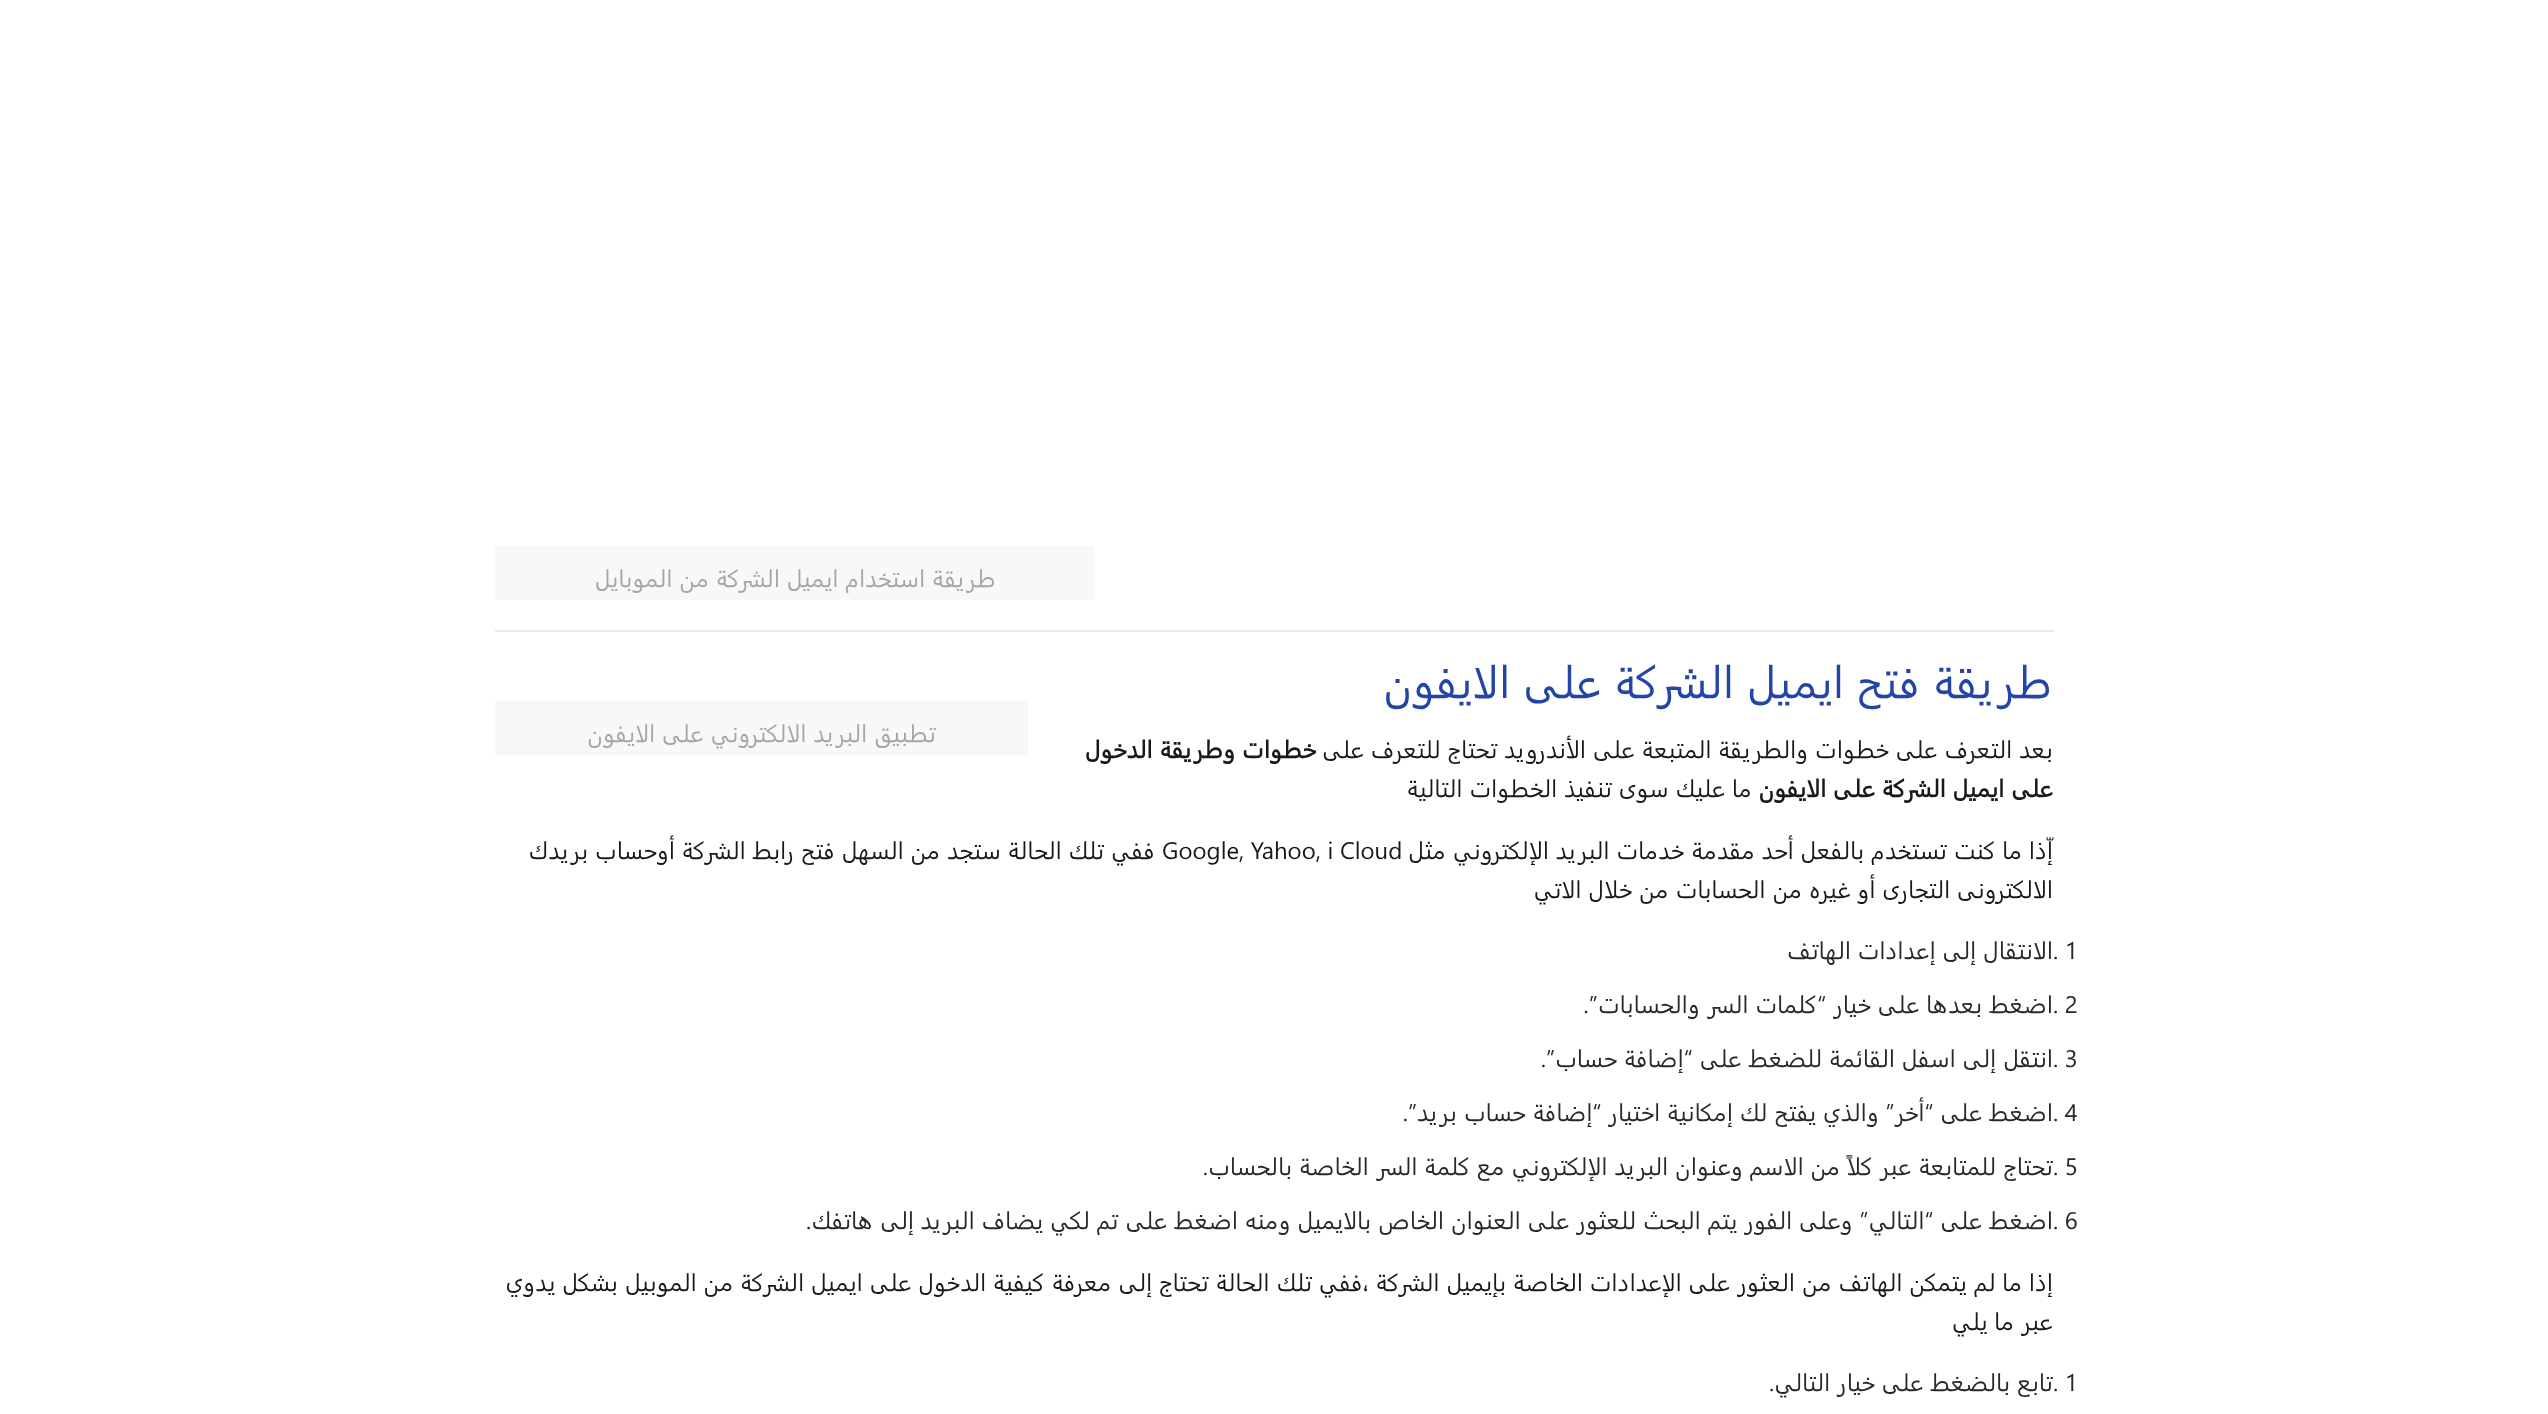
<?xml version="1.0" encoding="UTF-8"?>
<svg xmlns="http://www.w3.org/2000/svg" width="2548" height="1414">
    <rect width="100%" height="100%" fill="#FFFFFF"/>
    <rect x="495" y="546" width="600" height="54" fill="#F8F8F8"/>
    <text x="996" y="587" font-family="Segoe UI" font-size="24" direction="rtl" fill="#A6A6A6">طريقة استخدام ايميل الشركة من الموبايل</text>
    <rect x="495" y="630" width="1559" height="2" fill="#EBEBEB"/>
    <text x="2053" y="698" font-family="Segoe UI" font-size="45" direction="rtl" fill="#2345A5">طريقة فتح ايميل الشركة على الايفون</text>
    <text x="2053" y="758" font-family="Segoe UI" font-size="24" direction="rtl" fill="#191919">بعد التعرف على خطوات والطريقة المتبعة على الأندرويد تحتاج للتعرف على</text>
    <text x="1316" y="758" font-family="Segoe UI" font-size="24" font-weight="700" direction="rtl" fill="#191919">خطوات وطريقة الدخول</text>
    <text x="2053" y="797" font-family="Segoe UI" font-size="24" font-weight="700" direction="rtl" fill="#191919">على ايميل الشركة على الايفون</text>
    <text x="1752" y="797" font-family="Segoe UI" font-size="24" direction="rtl" fill="#191919">ما عليك سوى تنفيذ الخطوات التالية</text>
    <rect x="495" y="701" width="533" height="54" fill="#F8F8F8"/>
    <text x="936" y="742" font-family="Segoe UI" font-size="24" direction="rtl" fill="#A6A6A6">تطبيق البريد الالكتروني على الايفون</text>
    <text x="2053" y="859" font-family="Segoe UI" font-size="24" direction="rtl" fill="#191919">إّذا ما كنت تستخدم بالفعل أحد مقدمة خدمات البريد الإلكتروني مثل</text>
    <text x="1162" y="859" font-family="Segoe UI" font-size="24" fill="#191919">Google, Yahoo, i Cloud</text>
    <text x="1155" y="859" font-family="Segoe UI" font-size="24" direction="rtl" fill="#191919">ففي تلك الحالة ستجد من السهل فتح رابط الشركة أوحساب بريدك</text>
    <text x="2053" y="898" font-family="Segoe UI" font-size="24" direction="rtl" fill="#191919">الالكترونى التجارى أو غيره من الحسابات من خلال الاتي</text>
    <text x="2053" y="959" font-family="Segoe UI" font-size="24" fill="#282828">. 1</text>
    <text x="2053" y="959" font-family="Segoe UI" font-size="24" direction="rtl" fill="#282828">الانتقال إلى إعدادات الهاتف</text>
    <text x="2053" y="1013" font-family="Segoe UI" font-size="24" fill="#282828">. 2</text>
    <text x="2053" y="1013" font-family="Segoe UI" font-size="24" direction="rtl" fill="#282828">اضغط بعدها على خيار “كلمات السر والحسابات”.</text>
    <text x="2053" y="1067" font-family="Segoe UI" font-size="24" fill="#282828">. 3</text>
    <text x="2053" y="1067" font-family="Segoe UI" font-size="24" direction="rtl" fill="#282828">انتقل إلى اسفل القائمة للضغط على “إضافة حساب”.</text>
    <text x="2053" y="1121" font-family="Segoe UI" font-size="24" fill="#282828">. 4</text>
    <text x="2053" y="1121" font-family="Segoe UI" font-size="24" direction="rtl" fill="#282828">اضغط على “أخر” والذي يفتح لك إمكانية اختيار “إضافة حساب بريد”.</text>
    <text x="2053" y="1175" font-family="Segoe UI" font-size="24" fill="#282828">. 5</text>
    <text x="2053" y="1175" font-family="Segoe UI" font-size="24" direction="rtl" fill="#282828">تحتاج للمتابعة عبر كلاً من الاسم وعنوان البريد الإلكتروني مع كلمة السر الخاصة بالحساب.</text>
    <text x="2053" y="1229" font-family="Segoe UI" font-size="24" fill="#282828">. 6</text>
    <text x="2053" y="1229" font-family="Segoe UI" font-size="24" direction="rtl" fill="#282828">اضغط على “التالي” وعلى الفور يتم البحث للعثور على العنوان الخاص بالايميل ومنه اضغط على تم لكي يضاف البريد إلى هاتفك.</text>
    <text font-family="Segoe UI" font-size="24" direction="rtl" fill="#191919">
        <tspan x="2053" y="1291">إذا ما لم يتمكن الهاتف من العثور على الإعدادات الخاصة بإيميل الشركة ،ففي تلك الحالة تحتاج إلى معرفة كيفية الدخول على ايميل الشركة من الموبيل بشكل يدوي</tspan>
        <tspan x="2053" y="1330">عبر ما يلي</tspan>
    </text>
    <text x="2053" y="1391" font-family="Segoe UI" font-size="24" fill="#282828">. 1</text>
    <text x="2053" y="1391" font-family="Segoe UI" font-size="24" direction="rtl" fill="#282828">تابع بالضغط على خيار التالي.</text>
</svg>
